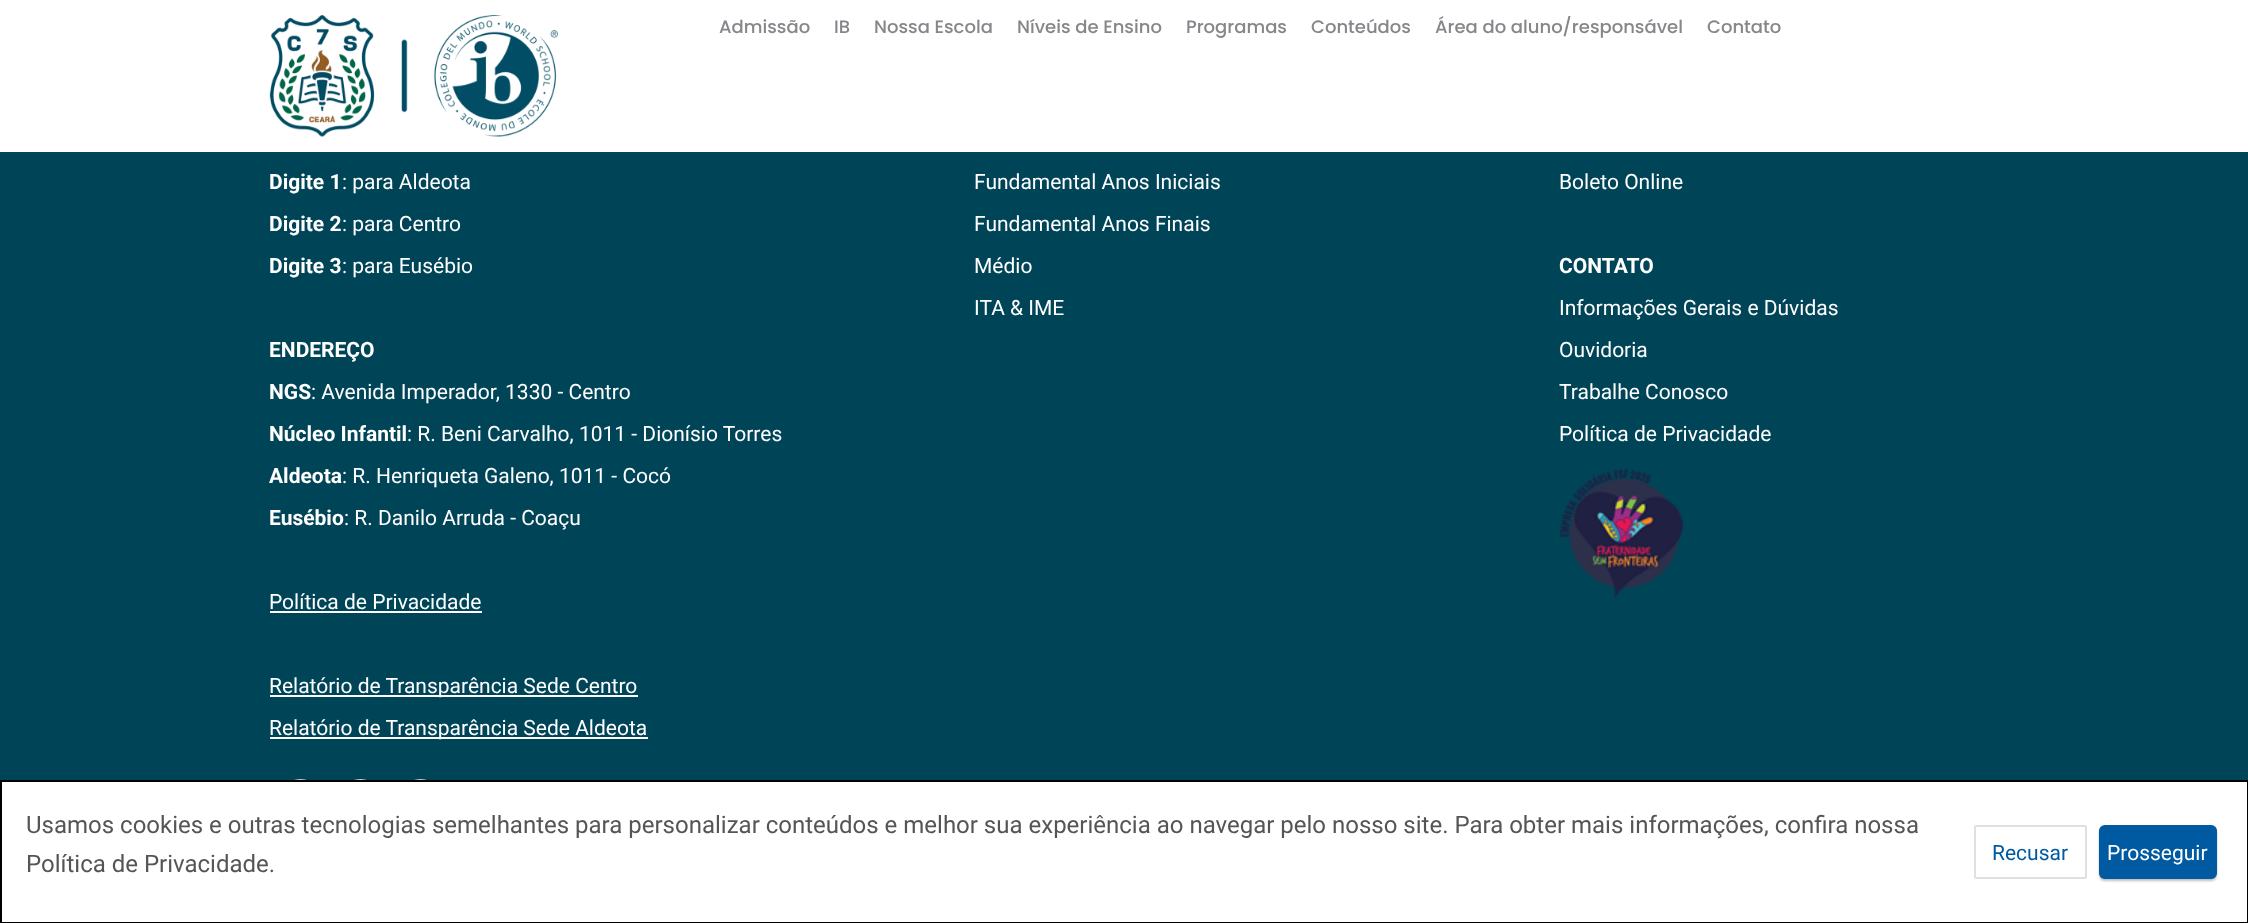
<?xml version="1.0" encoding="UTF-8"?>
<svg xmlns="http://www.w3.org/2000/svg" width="2248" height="923">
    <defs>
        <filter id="blur1" x="-50%" y="-200%" width="200%" height="500%"><feGaussianBlur stdDeviation="0.5"/></filter>
        <filter id="blur2" x="-50%" y="-200%" width="200%" height="500%"><feGaussianBlur stdDeviation="1"/></filter>
    </defs>
    <rect width="100%" height="100%" fill="#004458"/>
    <rect x="0" y="0" width="2248" height="152" fill="#FFFFFF"/>
    <image x="269" y="15" width="289" height="122" href="img_01.png"/>
    <text x="719" y="33" font-family="Poppins" font-size="18" font-weight="500" fill="#87868A">Admissão</text>
    <text x="834" y="33" font-family="Poppins" font-size="18" font-weight="500" fill="#87868A">IB</text>
    <text x="874" y="33" font-family="Poppins" font-size="18" font-weight="500" fill="#87868A">Nossa Escola</text>
    <text x="1017" y="33" font-family="Poppins" font-size="18" font-weight="500" fill="#87868A">Níveis de Ensino</text>
    <text x="1186" y="33" font-family="Poppins" font-size="18" font-weight="500" fill="#87868A">Programas</text>
    <text x="1311" y="33" font-family="Poppins" font-size="18" font-weight="500" fill="#87868A">Conteúdos</text>
    <text x="1435" y="33" font-family="Poppins" font-size="18" font-weight="500" fill="#87868A">Área do aluno/responsável</text>
    <text x="1707" y="33" font-family="Poppins" font-size="18" font-weight="500" fill="#87868A">Contato</text>
    <text x="269" y="189" font-family="Roboto" font-size="21" font-weight="700" fill="#FFFFFF">Digite 1</text>
    <text x="342" y="189" font-family="Roboto" font-size="21" fill="#FFFFFF">: para Aldeota</text>
    <text x="269" y="231" font-family="Roboto" font-size="21" font-weight="700" fill="#FFFFFF">Digite 2</text>
    <text x="342" y="231" font-family="Roboto" font-size="21" fill="#FFFFFF">: para Centro</text>
    <text x="269" y="273" font-family="Roboto" font-size="21" font-weight="700" fill="#FFFFFF">Digite 3</text>
    <text x="342" y="273" font-family="Roboto" font-size="21" fill="#FFFFFF">: para Eusébio</text>
    <text x="269" y="357" font-family="Roboto" font-size="21" font-weight="700" fill="#FFFFFF">ENDEREÇO</text>
    <text x="269" y="399" font-family="Roboto" font-size="21" font-weight="700" fill="#FFFFFF">NGS</text>
    <text x="311" y="399" font-family="Roboto" font-size="21" fill="#FFFFFF">: Avenida Imperador, 1330 - Centro</text>
    <text x="269" y="441" font-family="Roboto" font-size="21" font-weight="700" fill="#FFFFFF">Núcleo Infantil</text>
    <text x="407" y="441" font-family="Roboto" font-size="21" fill="#FFFFFF">: R. Beni Carvalho, 1011 - Dionísio Torres</text>
    <text x="269" y="483" font-family="Roboto" font-size="21" font-weight="700" fill="#FFFFFF">Aldeota</text>
    <text x="342" y="483" font-family="Roboto" font-size="21" fill="#FFFFFF">: R. Henriqueta Galeno, 1011 - Cocó</text>
    <text x="269" y="525" font-family="Roboto" font-size="21" font-weight="700" fill="#FFFFFF">Eusébio</text>
    <text x="344" y="525" font-family="Roboto" font-size="21" fill="#FFFFFF">: R. Danilo Arruda - Coaçu</text>
    <text x="269" y="609" font-family="Roboto" font-size="21" fill="#FFFFFF">Política de Privacidade</text>
    <rect x="270" y="611" width="212" height="2" fill="#FFFFFF"/>
    <rect x="270" y="695" width="368" height="2" fill="#FFFFFF"/>
    <text x="269" y="693" font-family="Roboto" font-size="21" fill="#FFFFFF">Relatório de Transparência Sede Centro</text>
    <rect x="270" y="737" width="378" height="2" fill="#FFFFFF"/>
    <text x="269" y="735" font-family="Roboto" font-size="21" fill="#FFFFFF">Relatório de Transparência Sede Aldeota</text>
    <circle cx="300.5" cy="801.5" r="21.5" fill="none" stroke="#CDCDCD" stroke-width="2"/>
    <circle cx="360.5" cy="801.5" r="21.5" fill="none" stroke="#CDCDCD" stroke-width="2"/>
    <circle cx="420.5" cy="801.5" r="21.5" fill="none" stroke="#CDCDCD" stroke-width="2"/>
    <text x="974" y="189" font-family="Roboto" font-size="21" fill="#FFFFFF">Fundamental Anos Iniciais</text>
    <text x="974" y="231" font-family="Roboto" font-size="21" fill="#FFFFFF">Fundamental Anos Finais</text>
    <text x="974" y="273" font-family="Roboto" font-size="21" fill="#FFFFFF">Médio</text>
    <text x="974" y="315" font-family="Roboto" font-size="21" fill="#FFFFFF">ITA &amp; IME</text>
    <text x="1559" y="189" font-family="Roboto" font-size="21" fill="#FFFFFF">Boleto Online</text>
    <text x="1559" y="273" font-family="Roboto" font-size="21" font-weight="700" fill="#FFFFFF">CONTATO</text>
    <text x="1559" y="315" font-family="Roboto" font-size="21" fill="#FFFFFF">Informações Gerais e Dúvidas</text>
    <text x="1559" y="357" font-family="Roboto" font-size="21" fill="#FFFFFF">Ouvidoria</text>
    <text x="1559" y="399" font-family="Roboto" font-size="21" fill="#FFFFFF">Trabalhe Conosco</text>
    <text x="1559" y="441" font-family="Roboto" font-size="21" fill="#FFFFFF">Política de Privacidade</text>
    <image x="1560" y="469" width="123" height="129" href="img_02.png"/>
    <rect x="1" y="781" width="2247" height="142" fill="#FFFFFF" stroke="#000000" stroke-width="2"/>
    <text font-family="Roboto" font-size="24" fill="#555555">
        <tspan x="26" y="833">Usamos cookies e outras tecnologias semelhantes para personalizar conteúdos e melhor sua experiência ao navegar pelo nosso site. Para obter mais informações, confira nossa</tspan>
        <tspan x="26" y="872">Política de Privacidade.</tspan>
    </text>
    <rect x="1975" y="826" width="111" height="52" rx="1" fill="none" stroke="#E0E0E0" stroke-width="2"/>
    <text x="1992" y="860" font-family="Roboto" font-size="21" fill="#005AA1">Recusar</text>
    <rect x="2099" y="825" width="118" height="54" rx="6" fill="#000000" fill-opacity="0.1" filter="url(#blur1)"/>
    <rect x="2099" y="825" width="118" height="54" rx="6" fill="#000000" fill-opacity="0.12" filter="url(#blur1)"/>
    <rect x="2099" y="827" width="118" height="54" rx="6" fill="#000000" fill-opacity="0.25" filter="url(#blur2)"/>
    <rect x="2099" y="825" width="118" height="54" rx="6" fill="#005AA1"/>
    <text x="2107" y="860" font-family="Roboto" font-size="21" fill="#FFFFFF">Prosseguir</text>
</svg>
